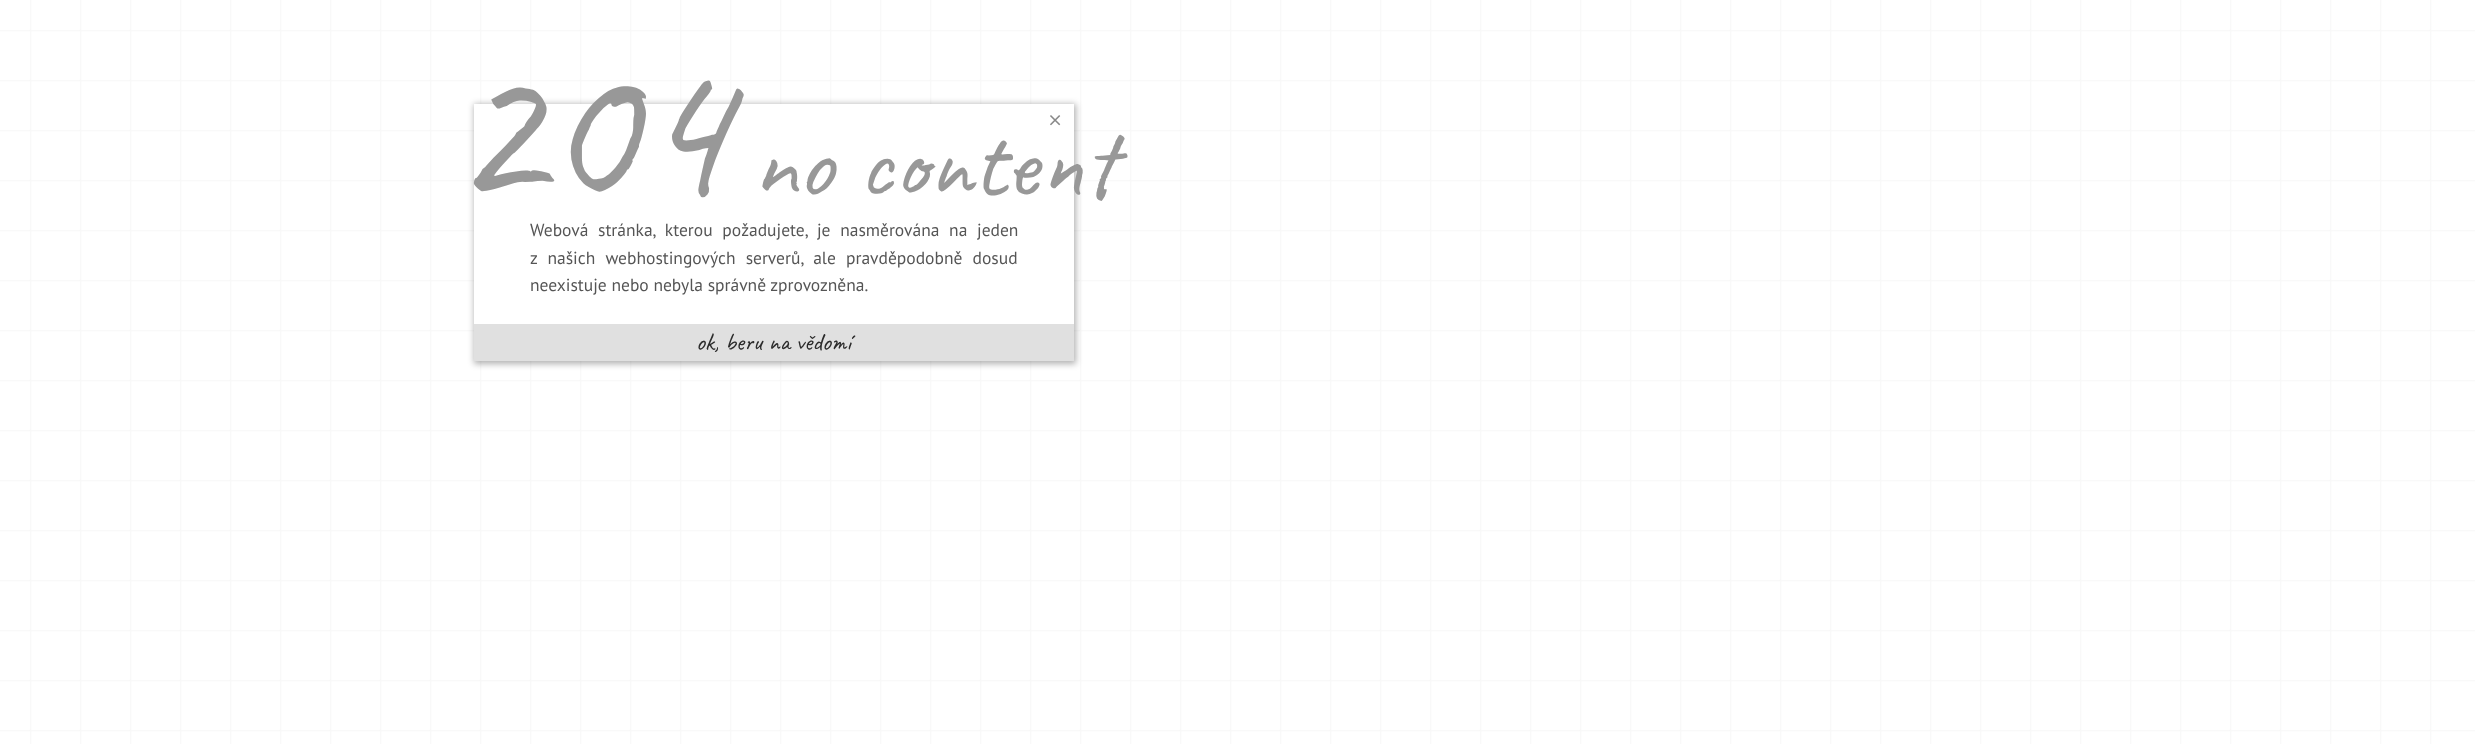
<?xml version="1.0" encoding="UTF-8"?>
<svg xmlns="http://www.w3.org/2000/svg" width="2475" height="744">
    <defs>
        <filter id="blur1" x="-50%" y="-200%" width="200%" height="500%"><feGaussianBlur stdDeviation="3"/></filter>
    </defs>
    <rect width="100%" height="100%" fill="#FFFFFF"/>
    <image x="0" y="0" width="2475" height="744" href="img_01.png"/>
    <rect x="474" y="104" width="602" height="260" fill="#000000" fill-opacity="0.3" filter="url(#blur1)"/>
    <rect x="474" y="104" width="600" height="220" fill="#FFFFFF"/>
    <text x="449" y="196" font-family="Caveat" font-size="206" fill="#989898">204</text>
    <text x="752" y="196" font-family="Caveat" font-size="100" fill="#989898">no content</text>
    <image x="1050" y="115" width="11" height="11" href="img_02.png"/>
    <text font-family="PT Sans" font-size="17.5" fill="#555555">
        <tspan x="530" y="236" word-spacing="5">Webová stránka, kterou požadujete, je nasměrována na jeden</tspan>
        <tspan x="530" y="264" word-spacing="5.5">z našich webhostingových serverů, ale pravděpodobně dosud</tspan>
        <tspan x="530" y="291">neexistuje nebo nebyla správně zprovozněna.</tspan>
    </text>
    <rect x="474" y="324" width="600" height="37" fill="#E0E0E0"/>
    <text x="696" y="350" font-family="Caveat" font-size="25" fill="#2B2B2B">ok, beru na vědomí</text>
</svg>
